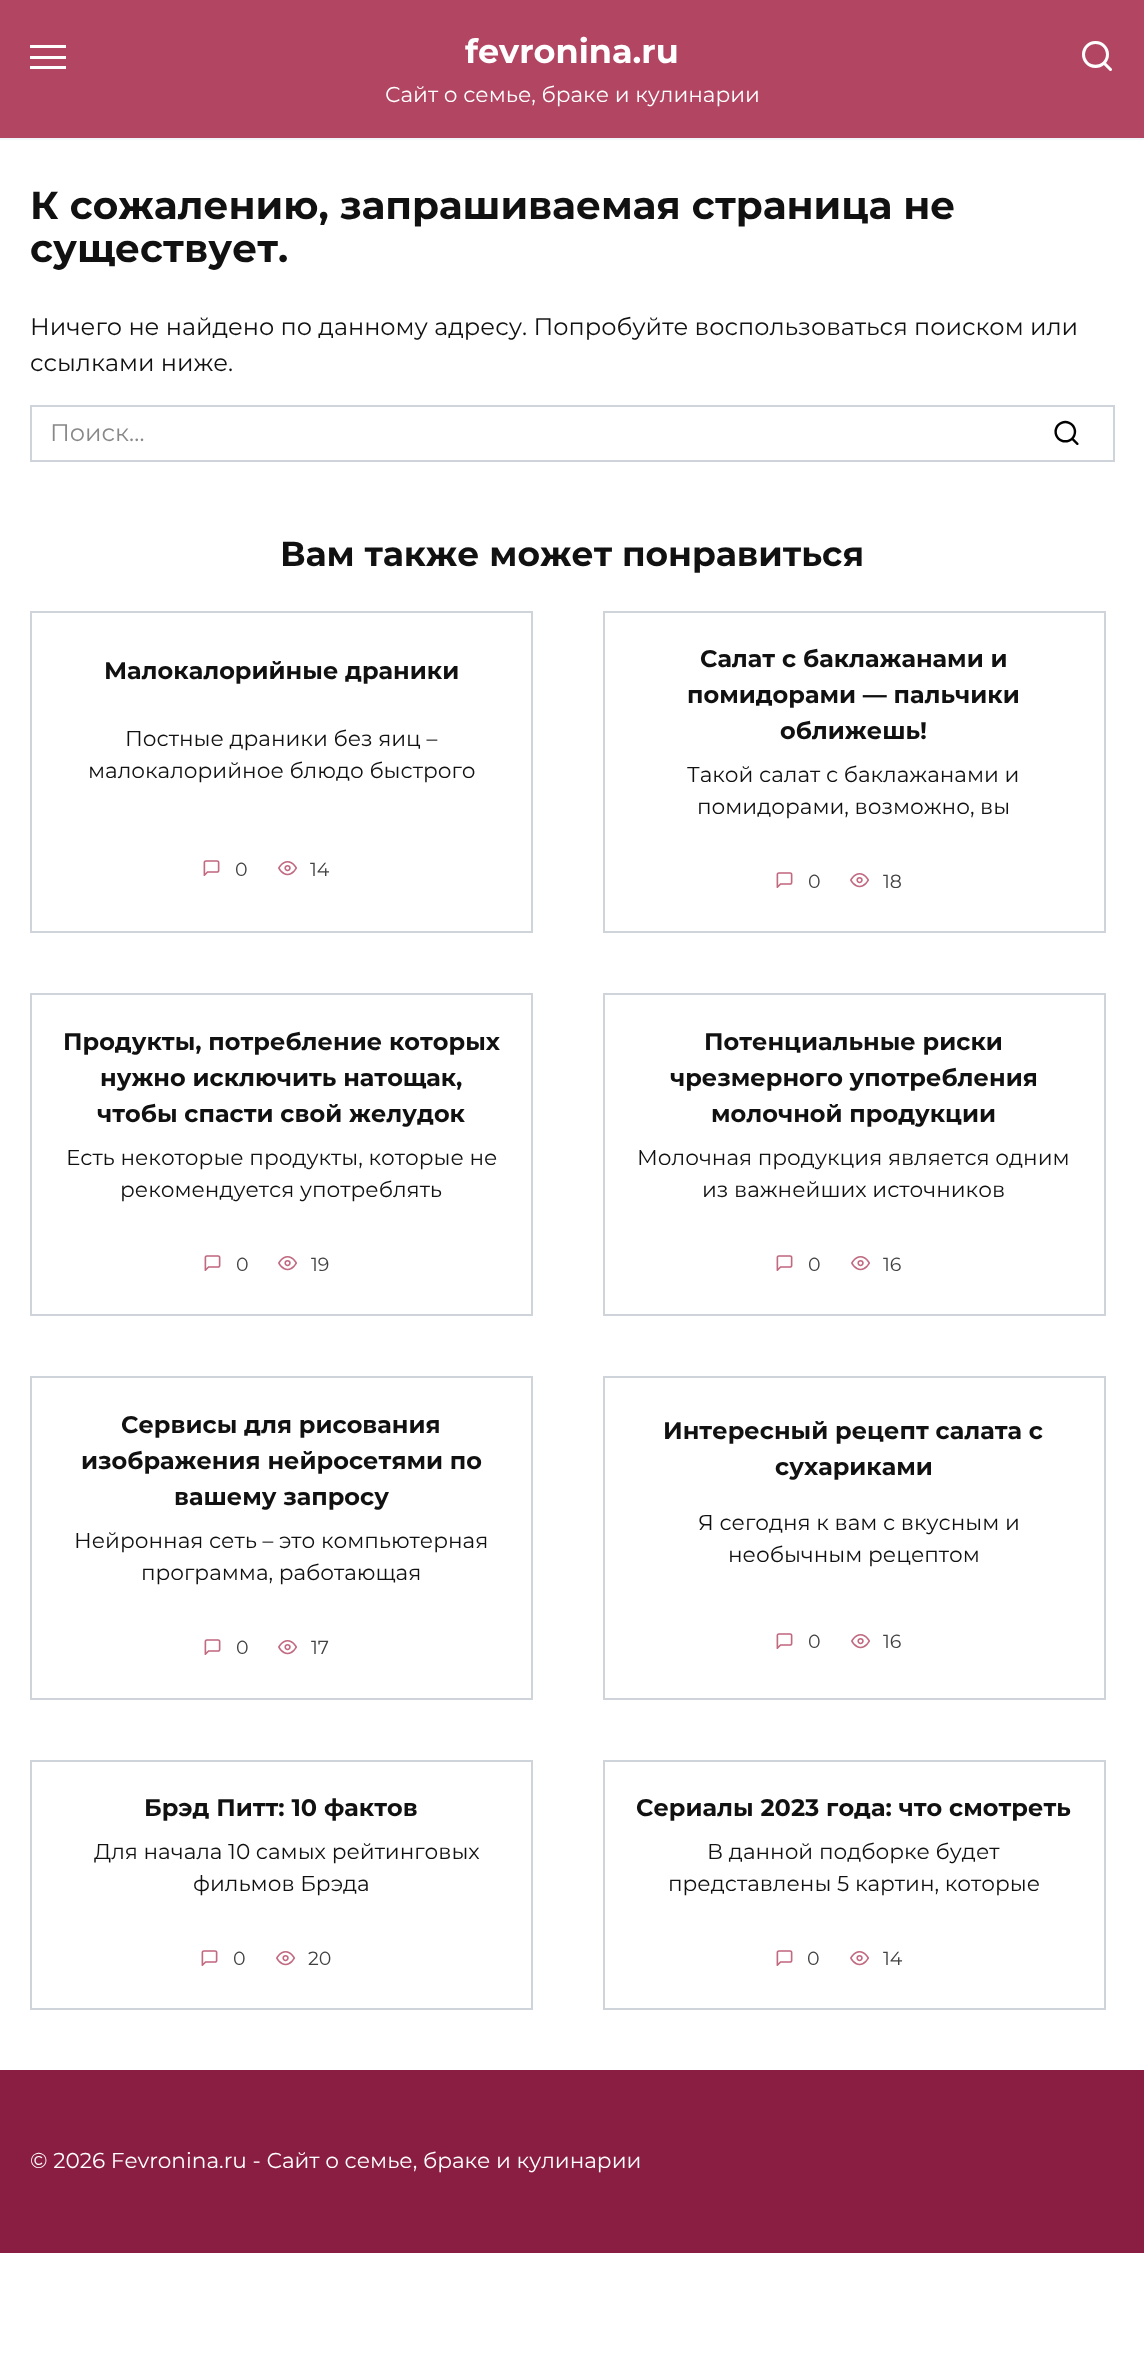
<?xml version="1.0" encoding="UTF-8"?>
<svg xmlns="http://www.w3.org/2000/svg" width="1144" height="2354">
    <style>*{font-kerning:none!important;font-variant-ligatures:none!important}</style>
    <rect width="100%" height="100%" fill="#FFFFFF"/>
    <rect x="0" y="0" width="1144" height="138" fill="#B14562"/>
    <rect x="0" y="138" width="1144" height="2" fill="#F2F5F9"/>
    <rect x="30" y="45" width="36" height="3" fill="#FFFFFF"/>
    <rect x="30" y="56" width="36" height="3" fill="#FFFFFF"/>
    <rect x="30" y="66" width="36" height="3" fill="#FFFFFF"/>
    <text x="465" y="63" font-family="Montserrat" font-size="33.5" font-weight="700" fill="#FFFFFF">fevronina.ru</text>
    <text x="385" y="102" font-family="Montserrat" font-size="21.6" fill="#FFFFFF">Сайт о семье, браке и кулинарии</text>
    <text x="1079" y="71" font-family="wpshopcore" font-size="36" fill="#FFFFFF">🔍</text>
    <text font-family="Montserrat" font-size="39" font-weight="700" fill="#111111">
        <tspan x="30" y="219">К сожалению, запрашиваемая страница не</tspan>
        <tspan x="30" y="262">существует.</tspan>
    </text>
    <text font-family="Montserrat" font-size="24" fill="#111111">
        <tspan x="30" y="335">Ничего не найдено по данному адресу. Попробуйте воспользоваться поиском или</tspan>
        <tspan x="30" y="371">ссылками ниже.</tspan>
    </text>
    <rect x="31" y="406" width="1083" height="55" fill="none" stroke="#CED4DA" stroke-width="2"/>
    <text x="50" y="441" font-family="Montserrat" font-size="24" fill="#888888">Поиск…</text>
    <text x="1052" y="445" font-family="wpshopcore" font-size="29" fill="#000000">🔍</text>
    <text x="280" y="566" font-family="Montserrat" font-size="34.5" font-weight="700" fill="#111111">Вам также может понравиться</text>
    <rect x="31" y="612" width="501" height="320" fill="none" stroke="#CED4DA" stroke-width="2"/>
    <text x="104" y="679" font-family="Montserrat" font-size="24" font-weight="700" fill="#111111">Малокалорийные драники</text>
    <text x="125" y="746" font-family="Montserrat" font-size="21.6" fill="#111111">Постные драники без яиц –</text>
    <text x="88" y="778" font-family="Montserrat" font-size="21.6" fill="#111111">малокалорийное блюдо быстрого</text>
    <text x="202" y="876" font-family="wpshopcore" font-size="19" fill="#C16A81">💬</text>
    <text x="235" y="876" font-family="Montserrat" font-size="19" fill="#414141">0</text>
    <text x="278" y="876" font-family="wpshopcore" font-size="19" fill="#C16A81">👀</text>
    <text x="310" y="876" font-family="Montserrat" font-size="19" fill="#414141">14</text>
    <rect x="604" y="612" width="501" height="320" fill="none" stroke="#CED4DA" stroke-width="2"/>
    <text x="700" y="667" font-family="Montserrat" font-size="24" font-weight="700" fill="#111111">Cалат с баклажанами и</text>
    <text x="687" y="703" font-family="Montserrat" font-size="24" font-weight="700" fill="#111111">помидорами — пальчики</text>
    <text x="780" y="739" font-family="Montserrat" font-size="24" font-weight="700" fill="#111111">оближешь!</text>
    <text x="687" y="782" font-family="Montserrat" font-size="21.6" fill="#111111">Такой салат с баклажанами и</text>
    <text x="697" y="814" font-family="Montserrat" font-size="21.6" fill="#111111">помидорами, возможно, вы</text>
    <text x="775" y="888" font-family="wpshopcore" font-size="19" fill="#C16A81">💬</text>
    <text x="808" y="888" font-family="Montserrat" font-size="19" fill="#414141">0</text>
    <text x="850" y="888" font-family="wpshopcore" font-size="19" fill="#C16A81">👀</text>
    <text x="883" y="888" font-family="Montserrat" font-size="19" fill="#414141">18</text>
    <rect x="31" y="994" width="501" height="321" fill="none" stroke="#CED4DA" stroke-width="2"/>
    <text x="63" y="1050" font-family="Montserrat" font-size="24" font-weight="700" fill="#111111">Продукты, потребление которых</text>
    <text x="100" y="1086" font-family="Montserrat" font-size="24" font-weight="700" fill="#111111">нужно исключить натощак,</text>
    <text x="97" y="1122" font-family="Montserrat" font-size="24" font-weight="700" fill="#111111">чтобы спасти свой желудок</text>
    <text x="66" y="1165" font-family="Montserrat" font-size="21.6" fill="#111111">Есть некоторые продукты, которые не</text>
    <text x="120" y="1197" font-family="Montserrat" font-size="21.6" fill="#111111">рекомендуется употреблять</text>
    <text x="203" y="1271" font-family="wpshopcore" font-size="19" fill="#C16A81">💬</text>
    <text x="236" y="1271" font-family="Montserrat" font-size="19" fill="#414141">0</text>
    <text x="278" y="1271" font-family="wpshopcore" font-size="19" fill="#C16A81">👀</text>
    <text x="311" y="1271" font-family="Montserrat" font-size="19" fill="#414141">19</text>
    <rect x="604" y="994" width="501" height="321" fill="none" stroke="#CED4DA" stroke-width="2"/>
    <text x="704" y="1050" font-family="Montserrat" font-size="24" font-weight="700" fill="#111111">Потенциальные риски</text>
    <text x="670" y="1086" font-family="Montserrat" font-size="24" font-weight="700" fill="#111111">чрезмерного употребления</text>
    <text x="711" y="1122" font-family="Montserrat" font-size="24" font-weight="700" fill="#111111">молочной продукции</text>
    <text x="637" y="1165" font-family="Montserrat" font-size="21.6" fill="#111111">Молочная продукция является одним</text>
    <text x="702" y="1197" font-family="Montserrat" font-size="21.6" fill="#111111">из важнейших источников</text>
    <text x="775" y="1271" font-family="wpshopcore" font-size="19" fill="#C16A81">💬</text>
    <text x="808" y="1271" font-family="Montserrat" font-size="19" fill="#414141">0</text>
    <text x="851" y="1271" font-family="wpshopcore" font-size="19" fill="#C16A81">👀</text>
    <text x="883" y="1271" font-family="Montserrat" font-size="19" fill="#414141">16</text>
    <rect x="31" y="1377" width="501" height="322" fill="none" stroke="#CED4DA" stroke-width="2"/>
    <text x="121" y="1433" font-family="Montserrat" font-size="24" font-weight="700" fill="#111111">Сервисы для рисования</text>
    <text x="81" y="1469" font-family="Montserrat" font-size="24" font-weight="700" fill="#111111">изображения нейросетями по</text>
    <text x="174" y="1505" font-family="Montserrat" font-size="24" font-weight="700" fill="#111111">вашему запросу</text>
    <text x="74" y="1548" font-family="Montserrat" font-size="21.6" fill="#111111">Нейронная сеть – это компьютерная</text>
    <text x="141" y="1580" font-family="Montserrat" font-size="21.6" fill="#111111">программа, работающая</text>
    <text x="203" y="1655" font-family="wpshopcore" font-size="19" fill="#C16A81">💬</text>
    <text x="236" y="1654" font-family="Montserrat" font-size="19" fill="#414141">0</text>
    <text x="278" y="1655" font-family="wpshopcore" font-size="19" fill="#C16A81">👀</text>
    <text x="311" y="1654" font-family="Montserrat" font-size="19" fill="#414141">17</text>
    <rect x="604" y="1377" width="501" height="322" fill="none" stroke="#CED4DA" stroke-width="2"/>
    <text x="663" y="1439" font-family="Montserrat" font-size="24" font-weight="700" fill="#111111">Интересный рецепт салата с</text>
    <text x="775" y="1475" font-family="Montserrat" font-size="24" font-weight="700" fill="#111111">сухариками</text>
    <text x="698" y="1530" font-family="Montserrat" font-size="21.6" fill="#111111">Я сегодня к вам с вкусным и</text>
    <text x="728" y="1562" font-family="Montserrat" font-size="21.6" fill="#111111">необычным рецептом</text>
    <text x="775" y="1649" font-family="wpshopcore" font-size="19" fill="#C16A81">💬</text>
    <text x="808" y="1648" font-family="Montserrat" font-size="19" fill="#414141">0</text>
    <text x="851" y="1649" font-family="wpshopcore" font-size="19" fill="#C16A81">👀</text>
    <text x="883" y="1648" font-family="Montserrat" font-size="19" fill="#414141">16</text>
    <rect x="31" y="1761" width="501" height="248" fill="none" stroke="#CED4DA" stroke-width="2"/>
    <text x="144" y="1816" font-family="Montserrat" font-size="24" font-weight="700" fill="#111111">Брэд Питт: 10 фактов</text>
    <text x="94" y="1859" font-family="Montserrat" font-size="21.6" fill="#111111">Для начала 10 самых рейтинговых</text>
    <text x="193" y="1891" font-family="Montserrat" font-size="21.6" fill="#111111">фильмов Брэда</text>
    <text x="200" y="1966" font-family="wpshopcore" font-size="19" fill="#C16A81">💬</text>
    <text x="233" y="1965" font-family="Montserrat" font-size="19" fill="#414141">0</text>
    <text x="276" y="1966" font-family="wpshopcore" font-size="19" fill="#C16A81">👀</text>
    <text x="308" y="1965" font-family="Montserrat" font-size="19" fill="#414141">20</text>
    <rect x="604" y="1761" width="501" height="248" fill="none" stroke="#CED4DA" stroke-width="2"/>
    <text x="636" y="1816" font-family="Montserrat" font-size="24" font-weight="700" fill="#111111">Сериалы 2023 года: что смотреть</text>
    <text x="707" y="1859" font-family="Montserrat" font-size="21.6" fill="#111111">В данной подборке будет</text>
    <text x="668" y="1891" font-family="Montserrat" font-size="21.6" fill="#111111">представлены 5 картин, которые</text>
    <text x="775" y="1966" font-family="wpshopcore" font-size="19" fill="#C16A81">💬</text>
    <text x="807" y="1965" font-family="Montserrat" font-size="19" fill="#414141">0</text>
    <text x="850" y="1966" font-family="wpshopcore" font-size="19" fill="#C16A81">👀</text>
    <text x="883" y="1965" font-family="Montserrat" font-size="19" fill="#414141">14</text>
    <rect x="0" y="2070" width="1144" height="183" fill="#891E42"/>
    <text x="30" y="2168" font-family="Montserrat" font-size="21.6" fill="#FFFFFF">© 2026 Fevronina.ru - Сайт о семье, браке и кулинарии</text>
</svg>
